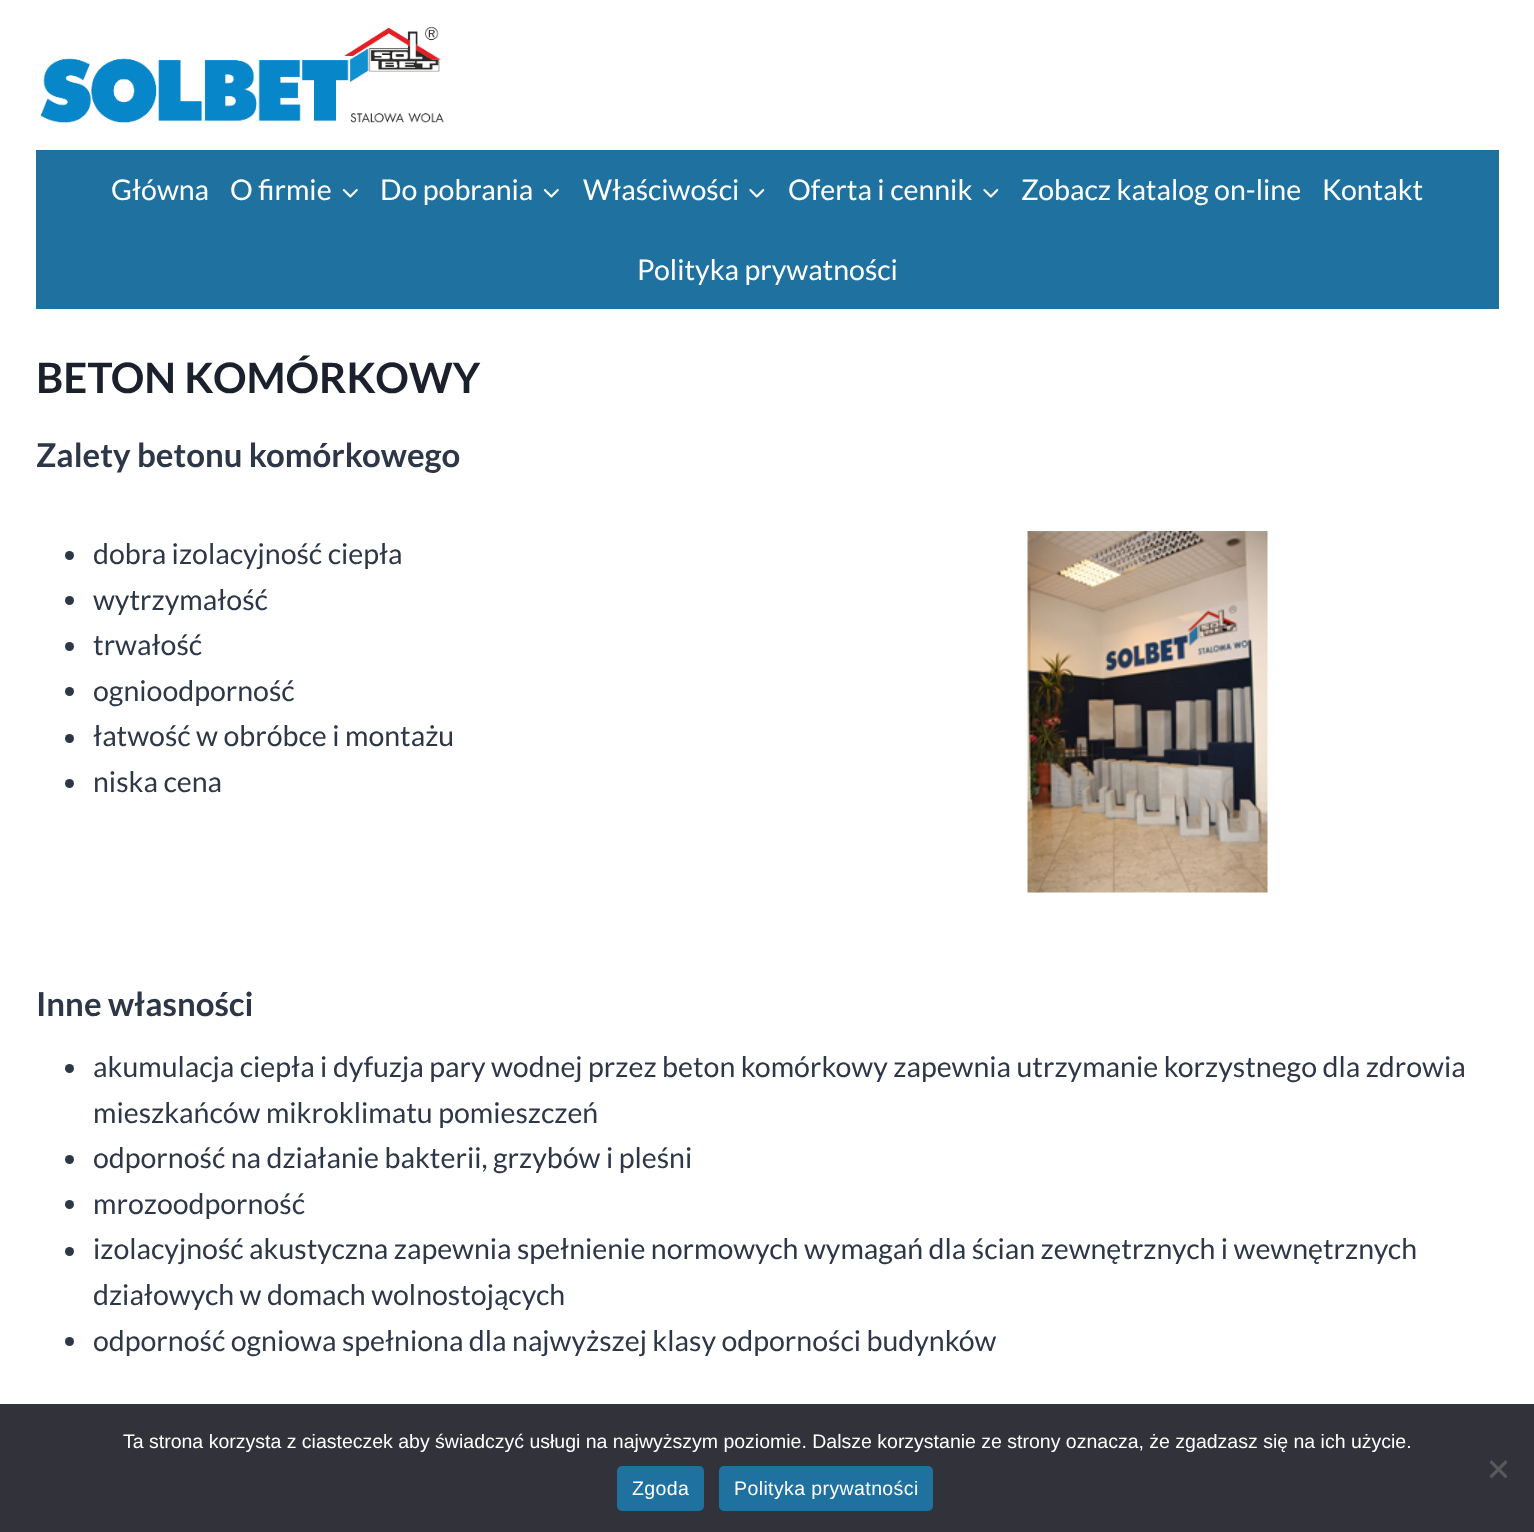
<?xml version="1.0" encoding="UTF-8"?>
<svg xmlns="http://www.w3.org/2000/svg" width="1534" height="1532">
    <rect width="100%" height="100%" fill="#FFFFFF"/>
    <image x="40" y="27" width="404" height="96" href="img_01.png"/>
    <rect x="36" y="150" width="1463" height="159" fill="#1F71A0"/>
    <text x="111" y="200" font-family="Lato" font-size="28.5" fill="#FFFFFF">Główna</text>
    <text x="230" y="200" font-family="Lato" font-size="28.5" fill="#FFFFFF">O firmie</text>
    <image x="342" y="189" width="16" height="9" href="img_02.png"/>
    <text x="380" y="200" font-family="Lato" font-size="28.5" fill="#FFFFFF">Do pobrania</text>
    <image x="543" y="189" width="16" height="9" href="img_02.png"/>
    <text x="583" y="200" font-family="Lato" font-size="28.5" fill="#FFFFFF">Właściwości</text>
    <image x="749" y="189" width="16" height="9" href="img_03.png"/>
    <text x="788" y="200" font-family="Lato" font-size="28.5" fill="#FFFFFF">Oferta i cennik</text>
    <image x="983" y="189" width="16" height="9" href="img_03.png"/>
    <text x="1021" y="200" font-family="Lato" font-size="28.5" fill="#FFFFFF">Zobacz katalog on-line</text>
    <text x="1322" y="200" font-family="Lato" font-size="28.5" fill="#FFFFFF">Kontakt</text>
    <text x="637" y="280" font-family="Lato" font-size="28.5" fill="#FFFFFF">Polityka prywatności</text>
    <text x="36" y="393" font-family="Lato" font-size="42" font-weight="700" fill="#1A202C">BETON KOMÓRKOWY</text>
    <text x="36" y="467" font-family="Lato" font-size="33" font-weight="700" fill="#2D3748">Zalety betonu komórkowego</text>
    <circle cx="69.5" cy="555.5" r="4.5" fill="#2D3748"/>
    <text x="93" y="564" font-family="Lato" font-size="28.5" fill="#2D3748">dobra izolacyjność ciepła</text>
    <circle cx="69.5" cy="600.5" r="4.5" fill="#2D3748"/>
    <text x="93" y="610" font-family="Lato" font-size="28.5" fill="#2D3748">wytrzymałość</text>
    <circle cx="69.5" cy="646.5" r="4.5" fill="#2D3748"/>
    <text x="93" y="655" font-family="Lato" font-size="28.5" fill="#2D3748">trwałość</text>
    <circle cx="69.5" cy="691.5" r="4.5" fill="#2D3748"/>
    <text x="93" y="701" font-family="Lato" font-size="28.5" fill="#2D3748">ognioodporność</text>
    <circle cx="69.5" cy="738.5" r="4.5" fill="#2D3748"/>
    <text x="93" y="746" font-family="Lato" font-size="28.5" fill="#2D3748">łatwość w obróbce i montażu</text>
    <circle cx="69.5" cy="783.5" r="4.5" fill="#2D3748"/>
    <text x="93" y="792" font-family="Lato" font-size="28.5" fill="#2D3748">niska cena</text>
    <image x="1027" y="531" width="241" height="362" href="img_04.png"/>
    <text x="36" y="1016" font-family="Lato" font-size="33" font-weight="700" fill="#2D3748">Inne własności</text>
    <circle cx="69.5" cy="1068.5" r="4.5" fill="#2D3748"/>
    <text font-family="Lato" font-size="28.5" fill="#2D3748">
        <tspan x="93" y="1077">akumulacja ciepła i dyfuzja pary wodnej przez beton komórkowy zapewnia utrzymanie korzystnego dla zdrowia</tspan>
        <tspan x="93" y="1123">mieszkańców mikroklimatu pomieszczeń</tspan>
    </text>
    <circle cx="69.5" cy="1159.5" r="4.5" fill="#2D3748"/>
    <text x="93" y="1168" font-family="Lato" font-size="28.5" fill="#2D3748">odporność na działanie bakterii, grzybów i pleśni</text>
    <circle cx="69.5" cy="1204.5" r="4.5" fill="#2D3748"/>
    <text x="93" y="1214" font-family="Lato" font-size="28.5" fill="#2D3748">mrozoodporność</text>
    <circle cx="69.5" cy="1251.5" r="4.5" fill="#2D3748"/>
    <text font-family="Lato" font-size="28.5" fill="#2D3748">
        <tspan x="93" y="1259">izolacyjność akustyczna zapewnia spełnienie normowych wymagań dla ścian zewnętrznych i wewnętrznych</tspan>
        <tspan x="93" y="1305">działowych w domach wolnostojących</tspan>
    </text>
    <circle cx="69.5" cy="1341.5" r="4.5" fill="#2D3748"/>
    <text x="93" y="1351" font-family="Lato" font-size="28.5" fill="#2D3748">odporność ogniowa spełniona dla najwyższej klasy odporności budynków</text>
    <rect x="0" y="1404" width="1534" height="128" fill="#32323A"/>
    <text x="123" y="1448" font-family="Liberation Sans" font-size="19.5" fill="#FFFFFF">Ta strona korzysta z ciasteczek aby świadczyć usługi na najwyższym poziomie. Dalsze korzystanie ze strony oznacza, że zgadzasz się na ich użycie.</text>
    <path d="M 1505.5 1460 L 1507.5 1462.5 L 1491.5 1478.5 L 1489.5 1476 Z" fill="#59595D"/>
    <path d="M 1489.5 1462.5 L 1491.5 1460 L 1507.5 1476 L 1505.5 1478.5 Z" fill="#59595D"/>
    <rect x="617" y="1466" width="87" height="45" rx="5" fill="#1F71A0"/>
    <text x="632" y="1495" font-family="Liberation Sans" font-size="19.5" letter-spacing="0.4" fill="#FFFFFF">Zgoda</text>
    <rect x="719" y="1466" width="214" height="45" rx="5" fill="#1F71A0"/>
    <text x="734" y="1495" font-family="Liberation Sans" font-size="19.5" letter-spacing="0.4" fill="#FFFFFF">Polityka prywatności</text>
</svg>
